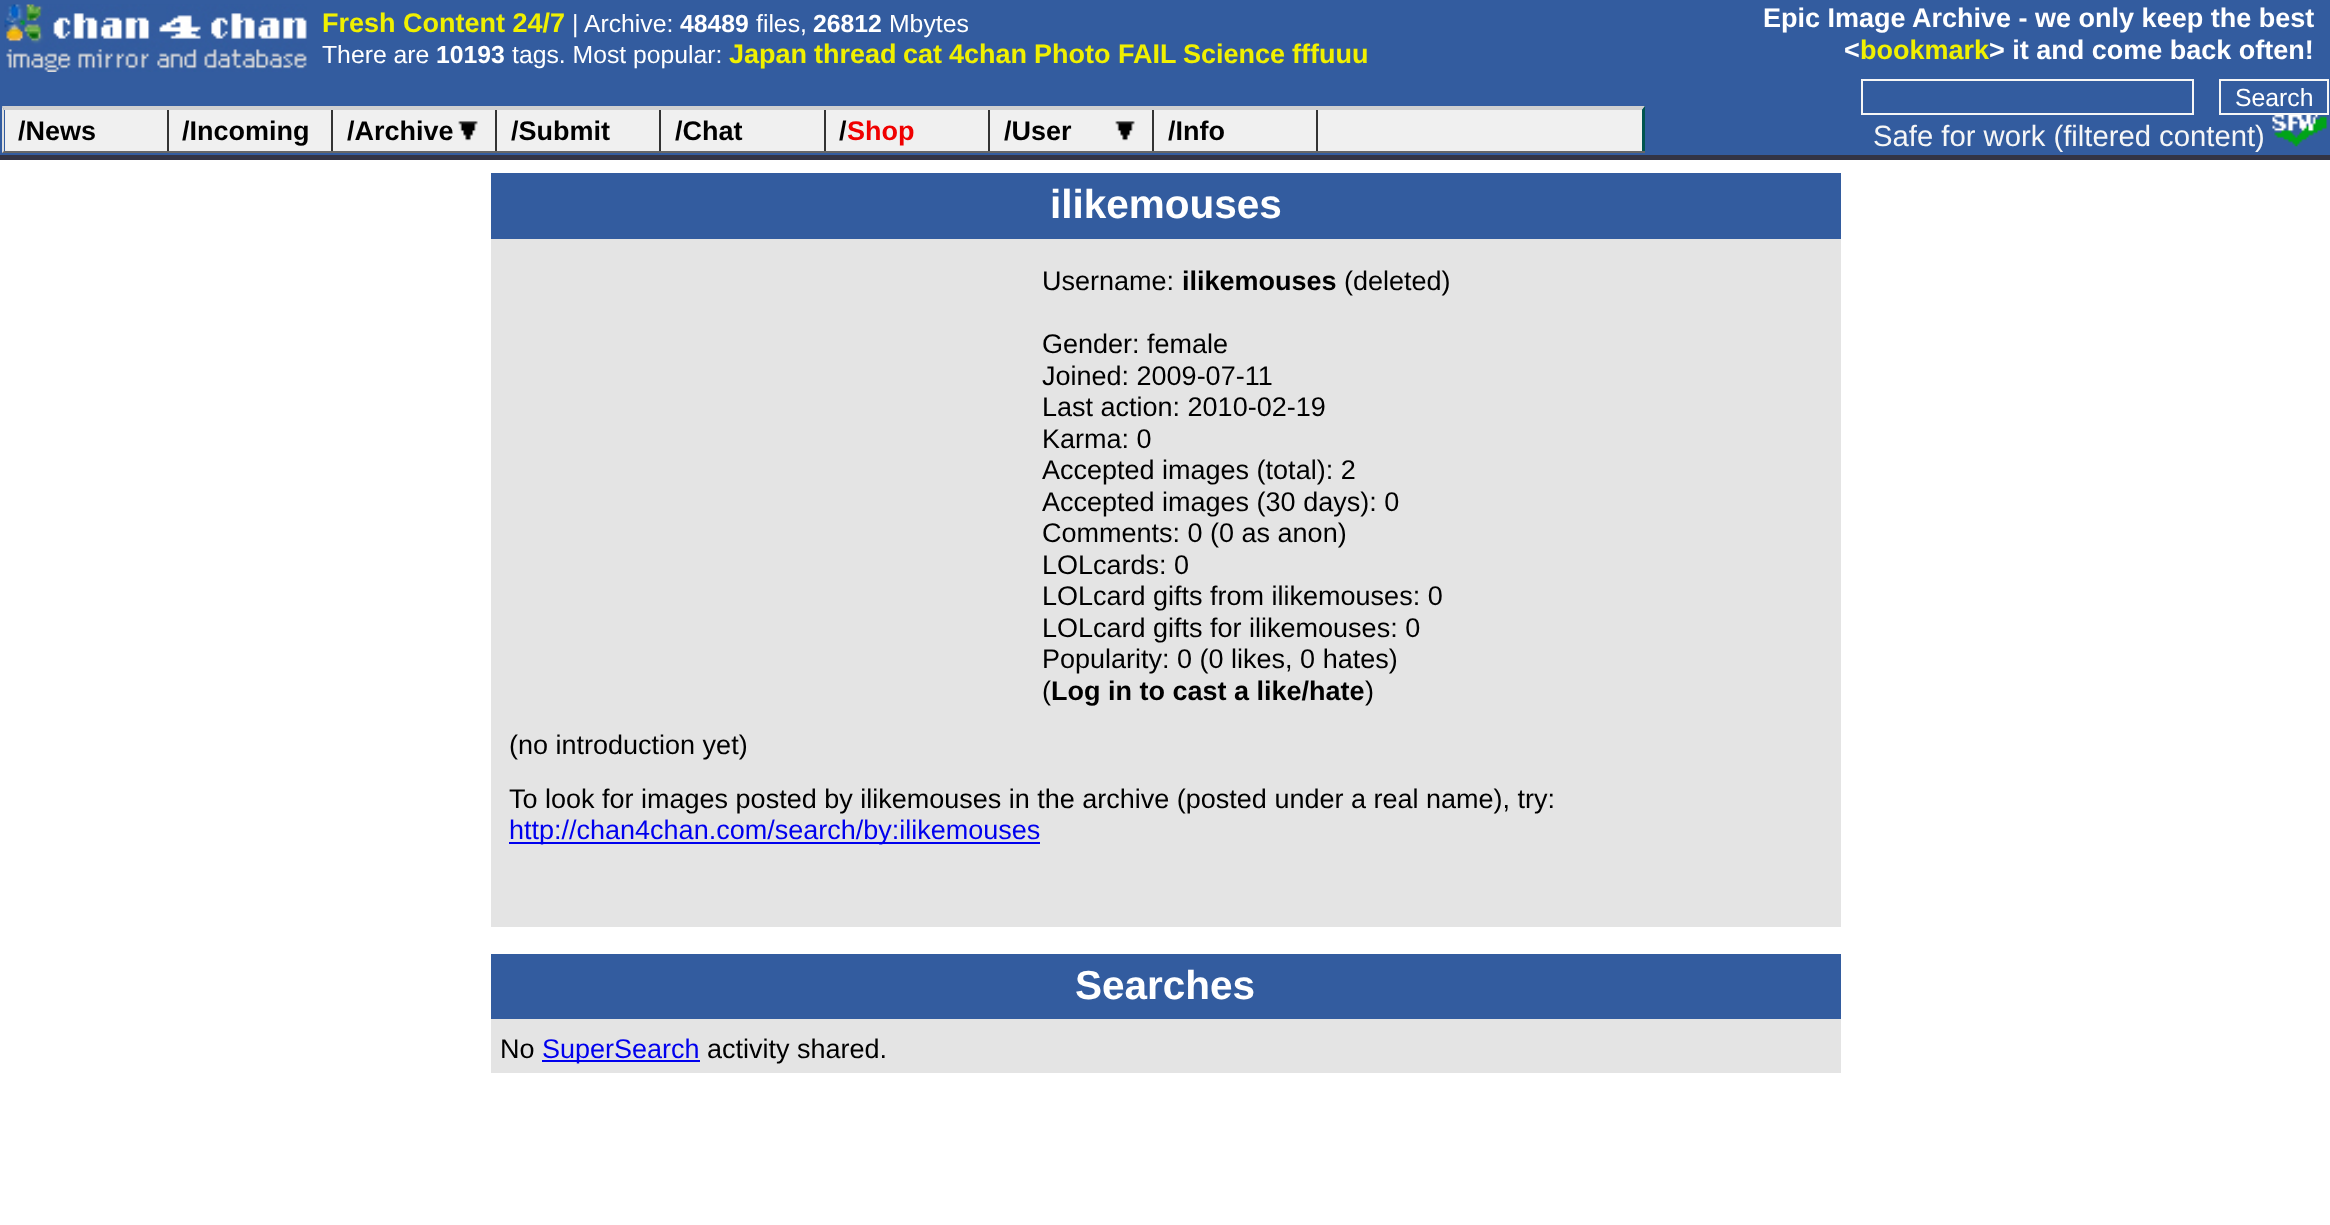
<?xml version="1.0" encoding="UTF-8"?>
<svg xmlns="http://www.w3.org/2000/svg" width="2330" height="1225">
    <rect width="100%" height="100%" fill="#FFFFFF"/>
    <rect x="0" y="0" width="2330" height="155" fill="#335C9F"/>
    <image x="4" y="4" width="303" height="68" href="img_01.png"/>
    <text x="322" y="32" font-family="Liberation Sans" font-size="27" font-weight="700" fill="#F0F000">Fresh Content 24/7</text>
    <text x="572" y="32" font-family="Liberation Sans" font-size="24.75" fill="#FFFFFF">| Archive:</text>
    <text x="680" y="32" font-family="Liberation Sans" font-size="24.75" font-weight="700" fill="#FFFFFF">48489</text>
    <text x="756" y="32" font-family="Liberation Sans" font-size="24.75" fill="#FFFFFF">files,</text>
    <text x="813" y="32" font-family="Liberation Sans" font-size="24.75" font-weight="700" fill="#FFFFFF">26812</text>
    <text x="889" y="32" font-family="Liberation Sans" font-size="24.75" fill="#FFFFFF">Mbytes</text>
    <text x="322" y="63" font-family="Liberation Sans" font-size="24.75" fill="#FFFFFF">There are</text>
    <text x="436" y="63" font-family="Liberation Sans" font-size="24.75" font-weight="700" fill="#FFFFFF">10193</text>
    <text x="512" y="63" font-family="Liberation Sans" font-size="24.75" fill="#FFFFFF">tags. Most popular:</text>
    <text x="729" y="63" font-family="Liberation Sans" font-size="27" font-weight="700" fill="#F0F000">Japan</text>
    <text x="814" y="63" font-family="Liberation Sans" font-size="27" font-weight="700" fill="#F0F000">thread</text>
    <text x="903" y="63" font-family="Liberation Sans" font-size="27" font-weight="700" fill="#F0F000">cat</text>
    <text x="949" y="63" font-family="Liberation Sans" font-size="27" font-weight="700" fill="#F0F000">4chan</text>
    <text x="1034" y="63" font-family="Liberation Sans" font-size="27" font-weight="700" fill="#F0F000">Photo</text>
    <text x="1118" y="63" font-family="Liberation Sans" font-size="27" font-weight="700" fill="#F0F000">FAIL</text>
    <text x="1183" y="63" font-family="Liberation Sans" font-size="27" font-weight="700" fill="#F0F000">Science</text>
    <text x="1292" y="63" font-family="Liberation Sans" font-size="27" font-weight="700" fill="#F0F000">fffuuu</text>
    <text x="1763" y="27" font-family="Liberation Sans" font-size="27" font-weight="700" fill="#FFFFFF">Epic Image Archive - we only keep the best</text>
    <text x="1844" y="59" font-family="Liberation Sans" font-size="27" font-weight="700" fill="#FFFFFF">&lt;</text>
    <text x="1860" y="59" font-family="Liberation Sans" font-size="27" font-weight="700" fill="#F0F000">bookmark</text>
    <text x="1989" y="59" font-family="Liberation Sans" font-size="27" font-weight="700" fill="#FFFFFF">&gt; it and come back often!</text>
    <rect x="5" y="110" width="1637" height="41" fill="#F0F0F0"/>
    <path d="M 2 106 H 1645 L 1642 110 H 4 Z" fill="#D0D0D0"/>
    <path d="M 1645 106 V 153 L 1642 151 V 110 Z" fill="#005550"/>
    <rect x="2" y="151" width="1643" height="2" fill="#666666"/>
    <path d="M 2 153 V 106 L 4 110 V 151 Z" fill="#E0E0E0"/>
    <rect x="167" y="110" width="2" height="41" fill="#333333"/>
    <text x="18" y="140" font-family="Liberation Sans" font-size="27" font-weight="700" fill="#000000">/News</text>
    <rect x="331" y="110" width="2" height="41" fill="#333333"/>
    <text x="182" y="140" font-family="Liberation Sans" font-size="27" font-weight="700" fill="#000000">/Incoming</text>
    <image x="458" y="121" width="20" height="20" href="img_02.png"/>
    <rect x="495" y="110" width="2" height="41" fill="#333333"/>
    <text x="347" y="140" font-family="Liberation Sans" font-size="27" font-weight="700" fill="#000000">/Archive</text>
    <rect x="659" y="110" width="2" height="41" fill="#333333"/>
    <text x="511" y="140" font-family="Liberation Sans" font-size="27" font-weight="700" fill="#000000">/Submit</text>
    <rect x="824" y="110" width="2" height="41" fill="#333333"/>
    <text x="675" y="140" font-family="Liberation Sans" font-size="27" font-weight="700" fill="#000000">/Chat</text>
    <rect x="988" y="110" width="2" height="41" fill="#333333"/>
    <text x="839" y="140" font-family="Liberation Sans" font-size="27" font-weight="700" fill="#000000">/</text>
    <text x="847" y="140" font-family="Liberation Sans" font-size="27" font-weight="700" fill="#F00000">Shop</text>
    <image x="1115" y="121" width="20" height="20" href="img_02.png"/>
    <rect x="1152" y="110" width="2" height="41" fill="#333333"/>
    <text x="1004" y="140" font-family="Liberation Sans" font-size="27" font-weight="700" fill="#000000">/User</text>
    <rect x="1316" y="110" width="2" height="41" fill="#333333"/>
    <text x="1168" y="140" font-family="Liberation Sans" font-size="27" font-weight="700" fill="#000000">/Info</text>
    <rect x="1862" y="80" width="331" height="34" fill="none" stroke="#F6F6F6" stroke-width="2"/>
    <rect x="2220" y="80" width="108" height="34" fill="none" stroke="#F6F6F6" stroke-width="2"/>
    <text x="2235" y="106" font-family="Liberation Sans" font-size="24.75" fill="#FFFFFF">Search</text>
    <text x="1873" y="146" font-family="Liberation Sans" font-size="29.25" fill="#F6F6F6">Safe for work (filtered content)</text>
    <image x="2272" y="115" width="56" height="32" href="img_03.png"/>
    <rect x="0" y="155" width="2330" height="5" fill="#333445"/>
    <rect x="491" y="173" width="1350" height="66" fill="#335C9F"/>
    <text x="1050" y="218" font-family="Liberation Sans" font-size="40.5" font-weight="700" fill="#FFFFFF">ilikemouses</text>
    <rect x="491" y="239" width="1350" height="688" fill="#E4E4E4"/>
    <text x="1042" y="290" font-family="Liberation Sans" font-size="27" fill="#000000">Username:</text>
    <text x="1182" y="290" font-family="Liberation Sans" font-size="27" font-weight="700" fill="#000000">ilikemouses</text>
    <text x="1344" y="290" font-family="Liberation Sans" font-size="27" fill="#000000">(deleted)</text>
    <text font-family="Liberation Sans" font-size="27" fill="#000000">
        <tspan x="1042" y="353">Gender: female</tspan>
        <tspan x="1042" y="385">Joined: 2009-07-11</tspan>
        <tspan x="1042" y="416">Last action: 2010-02-19</tspan>
        <tspan x="1042" y="448">Karma: 0</tspan>
        <tspan x="1042" y="479">Accepted images (total): 2</tspan>
        <tspan x="1042" y="511">Accepted images (30 days): 0</tspan>
        <tspan x="1042" y="542">Comments: 0 (0 as anon)</tspan>
        <tspan x="1042" y="574">LOLcards: 0</tspan>
        <tspan x="1042" y="605">LOLcard gifts from ilikemouses: 0</tspan>
        <tspan x="1042" y="637">LOLcard gifts for ilikemouses: 0</tspan>
        <tspan x="1042" y="668">Popularity: 0 (0 likes, 0 hates)</tspan>
        <tspan x="1042" y="700">(</tspan>
    </text>
    <text x="1051" y="700" font-family="Liberation Sans" font-size="27" font-weight="700" fill="#000000">Log in to cast a like/hate</text>
    <text x="1365" y="700" font-family="Liberation Sans" font-size="27" fill="#000000">)</text>
    <text x="509" y="754" font-family="Liberation Sans" font-size="27" fill="#000000">(no introduction yet)</text>
    <text x="509" y="808" font-family="Liberation Sans" font-size="27" fill="#000000">To look for images posted by ilikemouses in the archive (posted under a real name), try:</text>
    <rect x="509" y="842" width="531" height="2" fill="#0000EE"/>
    <text x="509" y="839" font-family="Liberation Sans" font-size="27" fill="#0000EE">http://chan4chan.com/search/by:ilikemouses</text>
    <rect x="491" y="954" width="1350" height="65" fill="#335C9F"/>
    <text x="1075" y="999" font-family="Liberation Sans" font-size="40.5" font-weight="700" fill="#FFFFFF">Searches</text>
    <rect x="491" y="1019" width="1350" height="54" fill="#E4E4E4"/>
    <text x="500" y="1058" font-family="Liberation Sans" font-size="27" fill="#000000">No</text>
    <rect x="542" y="1060" width="158" height="2" fill="#0000EE"/>
    <text x="542" y="1058" font-family="Liberation Sans" font-size="27" fill="#0000EE">SuperSearch</text>
    <text x="707" y="1058" font-family="Liberation Sans" font-size="27" fill="#000000">activity shared.</text>
</svg>
